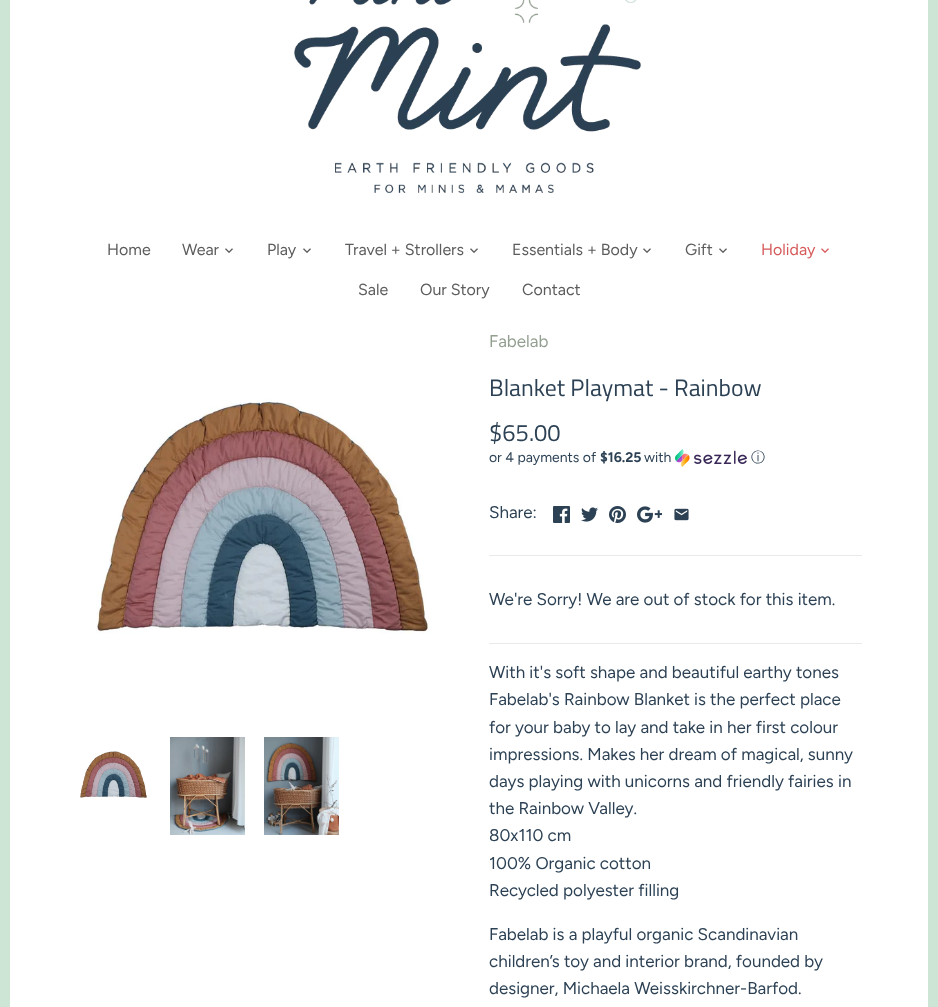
<?xml version="1.0" encoding="UTF-8"?>
<svg xmlns="http://www.w3.org/2000/svg" width="938" height="1007">
    <rect width="100%" height="100%" fill="#FFFFFF"/>
    <rect x="5" y="-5" width="928" height="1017" fill="none" stroke="#CDE5D5" stroke-width="10"/>
    <image x="294" y="0" width="347" height="193" href="img_01.png"/>
    <text x="107" y="255" font-family="Figtree" font-size="16" fill="#5C5C5F">Home</text>
    <text x="182" y="255" font-family="Figtree" font-size="16" fill="#5C5C5F">Wear</text>
    <image x="225" y="248" width="8" height="5" href="img_02.png"/>
    <text x="267" y="255" font-family="Figtree" font-size="16" fill="#5C5C5F">Play</text>
    <image x="303" y="248" width="8" height="5" href="img_02.png"/>
    <text x="345" y="255" font-family="Figtree" font-size="16" fill="#5C5C5F">Travel + Strollers</text>
    <image x="470" y="248" width="8" height="5" href="img_02.png"/>
    <text x="512" y="255" font-family="Figtree" font-size="16" fill="#5C5C5F">Essentials + Body</text>
    <image x="643" y="248" width="8" height="5" href="img_02.png"/>
    <text x="685" y="255" font-family="Figtree" font-size="16" fill="#5C5C5F">Gift</text>
    <image x="719" y="248" width="8" height="5" href="img_02.png"/>
    <text x="761" y="255" font-family="Figtree" font-size="16" fill="#D65A5A">Holiday</text>
    <image x="821" y="248" width="8" height="5" href="img_03.png"/>
    <text x="358" y="295" font-family="Figtree" font-size="16" fill="#5C5C5F">Sale</text>
    <text x="420" y="295" font-family="Figtree" font-size="16" fill="#5C5C5F">Our Story</text>
    <text x="522" y="295" font-family="Figtree" font-size="16" fill="#5C5C5F">Contact</text>
    <image x="96" y="399" width="334" height="235" href="img_04.png"/>
    <image x="80" y="751" width="67" height="47" href="img_05.png"/>
    <image x="170" y="737" width="75" height="98" href="img_06.png"/>
    <image x="264" y="737" width="75" height="98" href="img_07.png"/>
    <rect x="489" y="555" width="373" height="1" fill="#E8EBE9"/>
    <text x="489" y="347" font-family="Figtree" font-size="17" fill="#93A090">Fabelab</text>
    <text font-family="Titillium Web" font-size="23.75" fill="#2C4154">
        <tspan x="489" y="396">Blanket Playmat - Rainbow</tspan>
        <tspan x="489" y="441">$65.00</tspan>
    </text>
    <text x="489" y="462" font-family="Figtree" font-size="14" fill="#2C4154">or 4 payments of</text>
    <text x="600" y="462" font-family="Figtree" font-size="14" font-weight="700" fill="#2C4154">$16.25</text>
    <text x="644" y="462" font-family="Figtree" font-size="14" fill="#2C4154">with</text>
    <image x="675" y="449" width="72" height="18" href="img_08.png"/>
    <text x="751" y="462" font-family="WenQuanYi Zen Hei" font-size="14" font-weight="500" fill="#2C4154">ⓘ</text>
    <text x="489" y="518" font-family="Figtree" font-size="17" fill="#2C4154">Share:</text>
    <image x="553" y="506" width="17" height="17" href="img_09.png"/>
    <image x="581" y="507" width="17" height="15" href="img_10.png"/>
    <image x="609" y="506" width="17" height="17" href="img_11.png"/>
    <image x="637" y="506" width="25" height="17" href="img_12.png"/>
    <image x="674" y="508" width="15" height="13" href="img_13.png"/>
    <rect x="489" y="643" width="373" height="1" fill="#E8EBE9"/>
    <text x="489" y="605" font-family="Figtree" font-size="17" fill="#2C4154">We're Sorry! We are out of stock for this item.</text>
    <text font-family="Figtree" font-size="17" fill="#2C4154">
        <tspan x="489" y="678">With it's soft shape and beautiful earthy tones</tspan>
        <tspan x="489" y="705">Fabelab's Rainbow Blanket is the perfect place</tspan>
        <tspan x="489" y="733">for your baby to lay and take in her first colour</tspan>
        <tspan x="489" y="760">impressions. Makes her dream of magical, sunny</tspan>
        <tspan x="489" y="787">days playing with unicorns and friendly fairies in</tspan>
        <tspan x="489" y="814">the Rainbow Valley.</tspan>
        <tspan x="489" y="841">80x110 cm</tspan>
        <tspan x="489" y="869">100% Organic cotton</tspan>
        <tspan x="489" y="896">Recycled polyester filling</tspan>
    </text>
    <text font-family="Figtree" font-size="17" fill="#2C4154">
        <tspan x="489" y="940">Fabelab is a playful organic Scandinavian</tspan>
        <tspan x="489" y="967">children’s toy and interior brand, founded by</tspan>
        <tspan x="489" y="994">designer, Michaela Weisskirchner-Barfod.</tspan>
    </text>
</svg>
